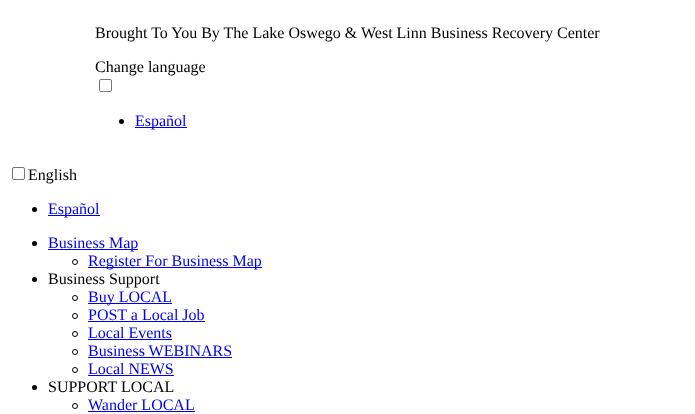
<?xml version="1.0" encoding="UTF-8"?>
<svg xmlns="http://www.w3.org/2000/svg" width="695" height="414">
    <rect width="100%" height="100%" fill="#FFFFFF"/>
    <text x="95" y="38" font-family="Liberation Serif" font-size="16" fill="#000000">Brought To You By The Lake Oswego &amp; West Linn Business Recovery Center</text>
    <text x="95" y="72" font-family="Liberation Serif" font-size="16" fill="#000000">Change language</text>
    <rect x="99.5" y="79.5" width="12" height="12" rx="1.5" fill="none" stroke="#767676"/>
    <circle cx="121.5" cy="121.5" r="2.5" fill="#000000"/>
    <rect x="135" y="127" width="52" height="1" fill="#0000EE"/>
    <text x="135" y="126" font-family="Liberation Serif" font-size="16" fill="#0000EE">Español</text>
    <rect x="12.5" y="167.5" width="12" height="12" rx="1.5" fill="none" stroke="#767676"/>
    <text x="28" y="180" font-family="Liberation Serif" font-size="16" fill="#000000">English</text>
    <circle cx="34.5" cy="209.5" r="2.5" fill="#000000"/>
    <rect x="48" y="215" width="52" height="1" fill="#0000EE"/>
    <text x="48" y="214" font-family="Liberation Serif" font-size="16" fill="#0000EE">Español</text>
    <circle cx="34.5" cy="243.5" r="2.5" fill="#000000"/>
    <rect x="48" y="249" width="90" height="1" fill="#0000EE"/>
    <text x="48" y="248" font-family="Liberation Serif" font-size="16" fill="#0000EE">Business Map</text>
    <circle cx="75" cy="262" r="2.5" fill="none" stroke="#000000"/>
    <rect x="88" y="267" width="174" height="1" fill="#0000EE"/>
    <text x="88" y="266" font-family="Liberation Serif" font-size="16" fill="#0000EE">Register For Business Map</text>
    <circle cx="34.5" cy="279.5" r="2.5" fill="#000000"/>
    <text x="48" y="284" font-family="Liberation Serif" font-size="16" fill="#000000">Business Support</text>
    <circle cx="75" cy="298" r="2.5" fill="none" stroke="#000000"/>
    <rect x="88" y="303" width="84" height="1" fill="#0000EE"/>
    <text x="88" y="302" font-family="Liberation Serif" font-size="16" fill="#0000EE">Buy LOCAL</text>
    <circle cx="75" cy="316" r="2.5" fill="none" stroke="#000000"/>
    <text x="88" y="320" font-family="Liberation Serif" font-size="16" fill="#0000EE">POST a Local Job</text>
    <rect x="88" y="321" width="117" height="1" fill="#0000EE"/>
    <circle cx="75" cy="334" r="2.5" fill="none" stroke="#000000"/>
    <text x="88" y="338" font-family="Liberation Serif" font-size="16" fill="#0000EE">Local Events</text>
    <rect x="88" y="339" width="84" height="1" fill="#0000EE"/>
    <circle cx="75" cy="352" r="2.5" fill="none" stroke="#000000"/>
    <text x="88" y="356" font-family="Liberation Serif" font-size="16" fill="#0000EE">Business WEBINARS</text>
    <rect x="88" y="357" width="144" height="1" fill="#0000EE"/>
    <circle cx="75" cy="370" r="2.5" fill="none" stroke="#000000"/>
    <text x="88" y="374" font-family="Liberation Serif" font-size="16" fill="#0000EE">Local NEWS</text>
    <rect x="88" y="375" width="86" height="1" fill="#0000EE"/>
    <circle cx="34.5" cy="387.5" r="2.5" fill="#000000"/>
    <text x="48" y="392" font-family="Liberation Serif" font-size="16" fill="#000000">SUPPORT LOCAL</text>
    <circle cx="75" cy="406" r="2.5" fill="none" stroke="#000000"/>
    <text x="88" y="410" font-family="Liberation Serif" font-size="16" fill="#0000EE">Wander LOCAL</text>
    <rect x="88" y="411" width="107" height="1" fill="#0000EE"/>
</svg>
